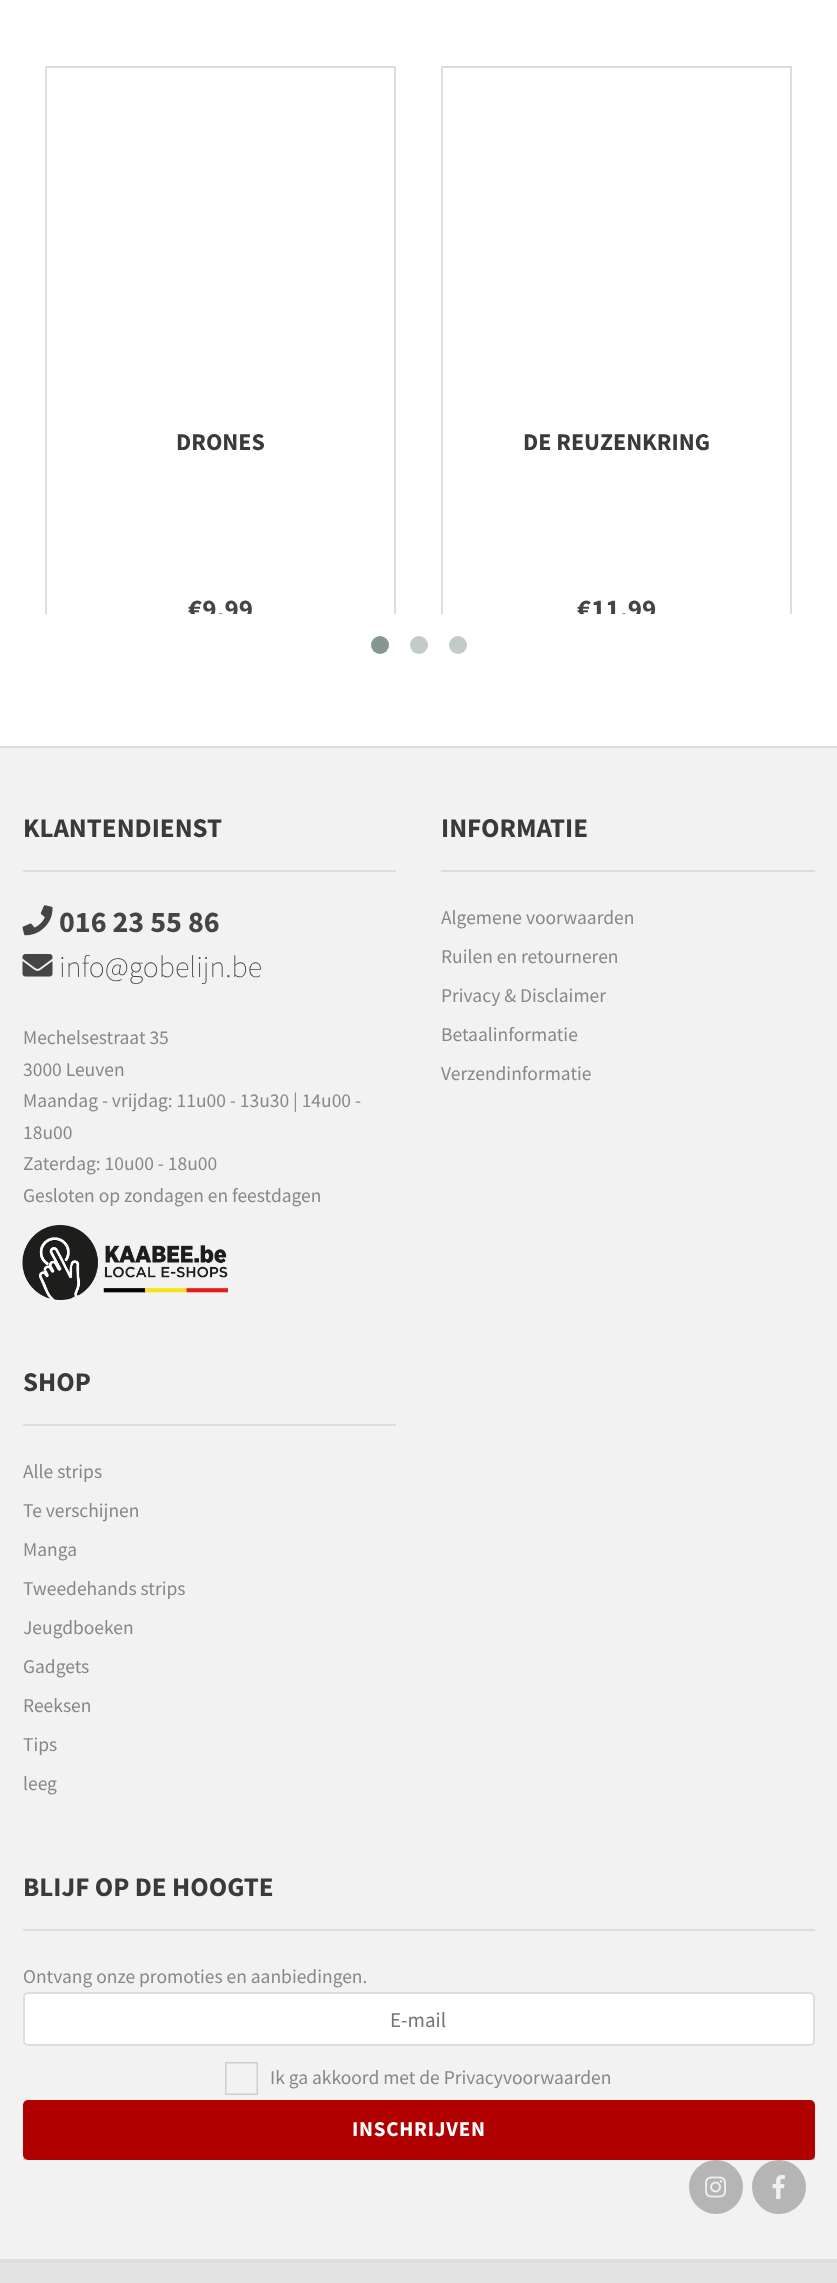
<?xml version="1.0" encoding="UTF-8"?>
<svg xmlns="http://www.w3.org/2000/svg" width="837" height="2283">
    <defs>
        <clipPath id="clip1"><rect x="23" y="66" width="792" height="548"/></clipPath>
        <clipPath id="clip2"><rect x="23" y="1992" width="792" height="168"/></clipPath>
    </defs>
    <rect width="100%" height="100%" fill="#FFFFFF"/>
    <g clip-path="url(#clip1)">
        <rect x="46" y="67" width="349" height="567" fill="none" stroke="#DDDDDD" stroke-width="2"/>
    </g>
    <text x="176" y="450" font-family="Source Sans Pro" font-size="24" font-weight="700" fill="#3A3A3A">DRONES</text>
    <g clip-path="url(#clip1)">
        <text x="188" y="618" font-family="Source Sans Pro" font-size="27" font-weight="700" fill="#454545">€9,99</text>
        <rect x="442" y="67" width="349" height="567" fill="none" stroke="#DDDDDD" stroke-width="2"/>
    </g>
    <text x="523" y="450" font-family="Source Sans Pro" font-size="24" font-weight="700" fill="#3A3A3A">DE REUZENKRING</text>
    <g clip-path="url(#clip1)">
        <text x="577" y="618" font-family="Source Sans Pro" font-size="27" font-weight="700" fill="#454545">€11,99</text>
    </g>
    <circle cx="380" cy="645" r="9" fill="#869791"/>
    <circle cx="419" cy="645" r="9" fill="#C3CBC8"/>
    <circle cx="458" cy="645" r="9" fill="#C3CBC8"/>
    <rect x="0" y="748" width="837" height="1511" fill="#F2F2F2"/>
    <rect x="0" y="746" width="837" height="2" fill="#DDDDDD"/>
    <rect x="0" y="2259" width="837" height="4" fill="#DDDDDD"/>
    <rect x="23" y="870" width="373" height="2" fill="#DDDDDD"/>
    <text x="23" y="837" font-family="Source Sans Pro" font-size="27" font-weight="700" fill="#3A3A3A">KLANTENDIENST</text>
    <image x="22" y="905" width="31" height="31" href="img_01.png"/>
    <text x="59" y="932" font-family="Source Sans Pro" font-size="30" font-weight="700" fill="#454545">016 23 55 86</text>
    <image x="22" y="954" width="31" height="23" href="img_02.png"/>
    <text x="59" y="977" font-family="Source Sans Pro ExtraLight" font-size="30" font-weight="200" fill="#454545">info@gobelijn.be</text>
    <text font-family="Source Sans Pro" font-size="19.5" fill="#888888">
        <tspan x="23" y="1044">Mechelsestraat 35</tspan>
        <tspan x="23" y="1076">3000 Leuven</tspan>
        <tspan x="23" y="1107">Maandag - vrijdag: 11u00 - 13u30 | 14u00 -</tspan>
        <tspan x="23" y="1139">18u00</tspan>
        <tspan x="23" y="1170">Zaterdag: 10u00 - 18u00</tspan>
        <tspan x="23" y="1202">Gesloten op zondagen en feestdagen</tspan>
    </text>
    <image x="22" y="1225" width="206" height="75" href="img_03.png"/>
    <rect x="441" y="870" width="374" height="2" fill="#DDDDDD"/>
    <text x="441" y="837" font-family="Source Sans Pro" font-size="27" font-weight="700" fill="#3A3A3A">INFORMATIE</text>
    <text x="441" y="924" font-family="Source Sans Pro" font-size="19.5" fill="#888888">Algemene voorwaarden</text>
    <text x="441" y="963" font-family="Source Sans Pro" font-size="19.5" fill="#888888">Ruilen en retourneren</text>
    <text x="441" y="1002" font-family="Source Sans Pro" font-size="19.5" fill="#888888">Privacy &amp; Disclaimer</text>
    <text x="441" y="1041" font-family="Source Sans Pro" font-size="19.5" fill="#888888">Betaalinformatie</text>
    <text x="441" y="1080" font-family="Source Sans Pro" font-size="19.5" fill="#888888">Verzendinformatie</text>
    <rect x="23" y="1424" width="373" height="2" fill="#DDDDDD"/>
    <text x="23" y="1391" font-family="Source Sans Pro" font-size="27" font-weight="700" fill="#3A3A3A">SHOP</text>
    <text x="23" y="1478" font-family="Source Sans Pro" font-size="19.5" fill="#888888">Alle strips</text>
    <text x="23" y="1517" font-family="Source Sans Pro" font-size="19.5" fill="#888888">Te verschijnen</text>
    <text x="23" y="1556" font-family="Source Sans Pro" font-size="19.5" fill="#888888">Manga</text>
    <text x="23" y="1595" font-family="Source Sans Pro" font-size="19.5" fill="#888888">Tweedehands strips</text>
    <text x="23" y="1634" font-family="Source Sans Pro" font-size="19.5" fill="#888888">Jeugdboeken</text>
    <text x="23" y="1673" font-family="Source Sans Pro" font-size="19.5" fill="#888888">Gadgets</text>
    <text x="23" y="1712" font-family="Source Sans Pro" font-size="19.5" fill="#888888">Reeksen</text>
    <text x="23" y="1751" font-family="Source Sans Pro" font-size="19.5" fill="#888888">Tips</text>
    <text x="23" y="1790" font-family="Source Sans Pro" font-size="19.5" fill="#888888">leeg</text>
    <rect x="23" y="1929" width="792" height="2" fill="#DDDDDD"/>
    <text x="23" y="1896" font-family="Source Sans Pro" font-size="27" font-weight="700" fill="#3A3A3A">BLIJF OP DE HOOGTE</text>
    <text x="23" y="1983" font-family="Source Sans Pro" font-size="19.5" fill="#888888">Ontvang onze promoties en aanbiedingen.</text>
    <rect x="24" y="1993" width="790" height="52" rx="4" fill="#FFFFFF" stroke="#DDDDDD" stroke-width="2"/>
    <text x="390" y="2027" font-family="Source Sans Pro" font-size="21" fill="#757575">E-mail</text>
    <image x="225" y="2062" width="33" height="33" href="img_04.png"/>
    <text x="270" y="2084" font-family="Source Sans Pro" font-size="19.5" fill="#888888">Ik ga akkoord met de Privacyvoorwaarden</text>
    <g clip-path="url(#clip2)">
        <path d="M 23 2158 C 23 2160 25 2162 28 2162 H 810 C 813 2162 815 2160 815 2157 V 2107 L 814 2105 V 2156 C 814 2158 812 2160 810 2160 H 27 C 25 2160 24 2159 23 2158 Z" fill="#B4B3B3"/>
    </g>
    <rect x="23" y="2100" width="792" height="60" rx="5" fill="#B00100"/>
    <text x="352" y="2136" font-family="Source Sans Pro" font-size="21" font-weight="700" letter-spacing="0.75" fill="#FFFFFF">INSCHRIJVEN</text>
    <circle cx="716" cy="2187" r="25.5" fill="#B5B5B5" stroke="#B5B5B5" stroke-width="3"/>
    <image x="705" y="2176" width="21" height="22" href="img_05.png"/>
    <circle cx="779" cy="2187" r="25.5" fill="#B5B5B5" stroke="#B5B5B5" stroke-width="3"/>
    <image x="772" y="2175" width="13" height="24" href="img_06.png"/>
    <rect x="0" y="2263" width="837" height="20" fill="#E3E3E3"/>
</svg>
